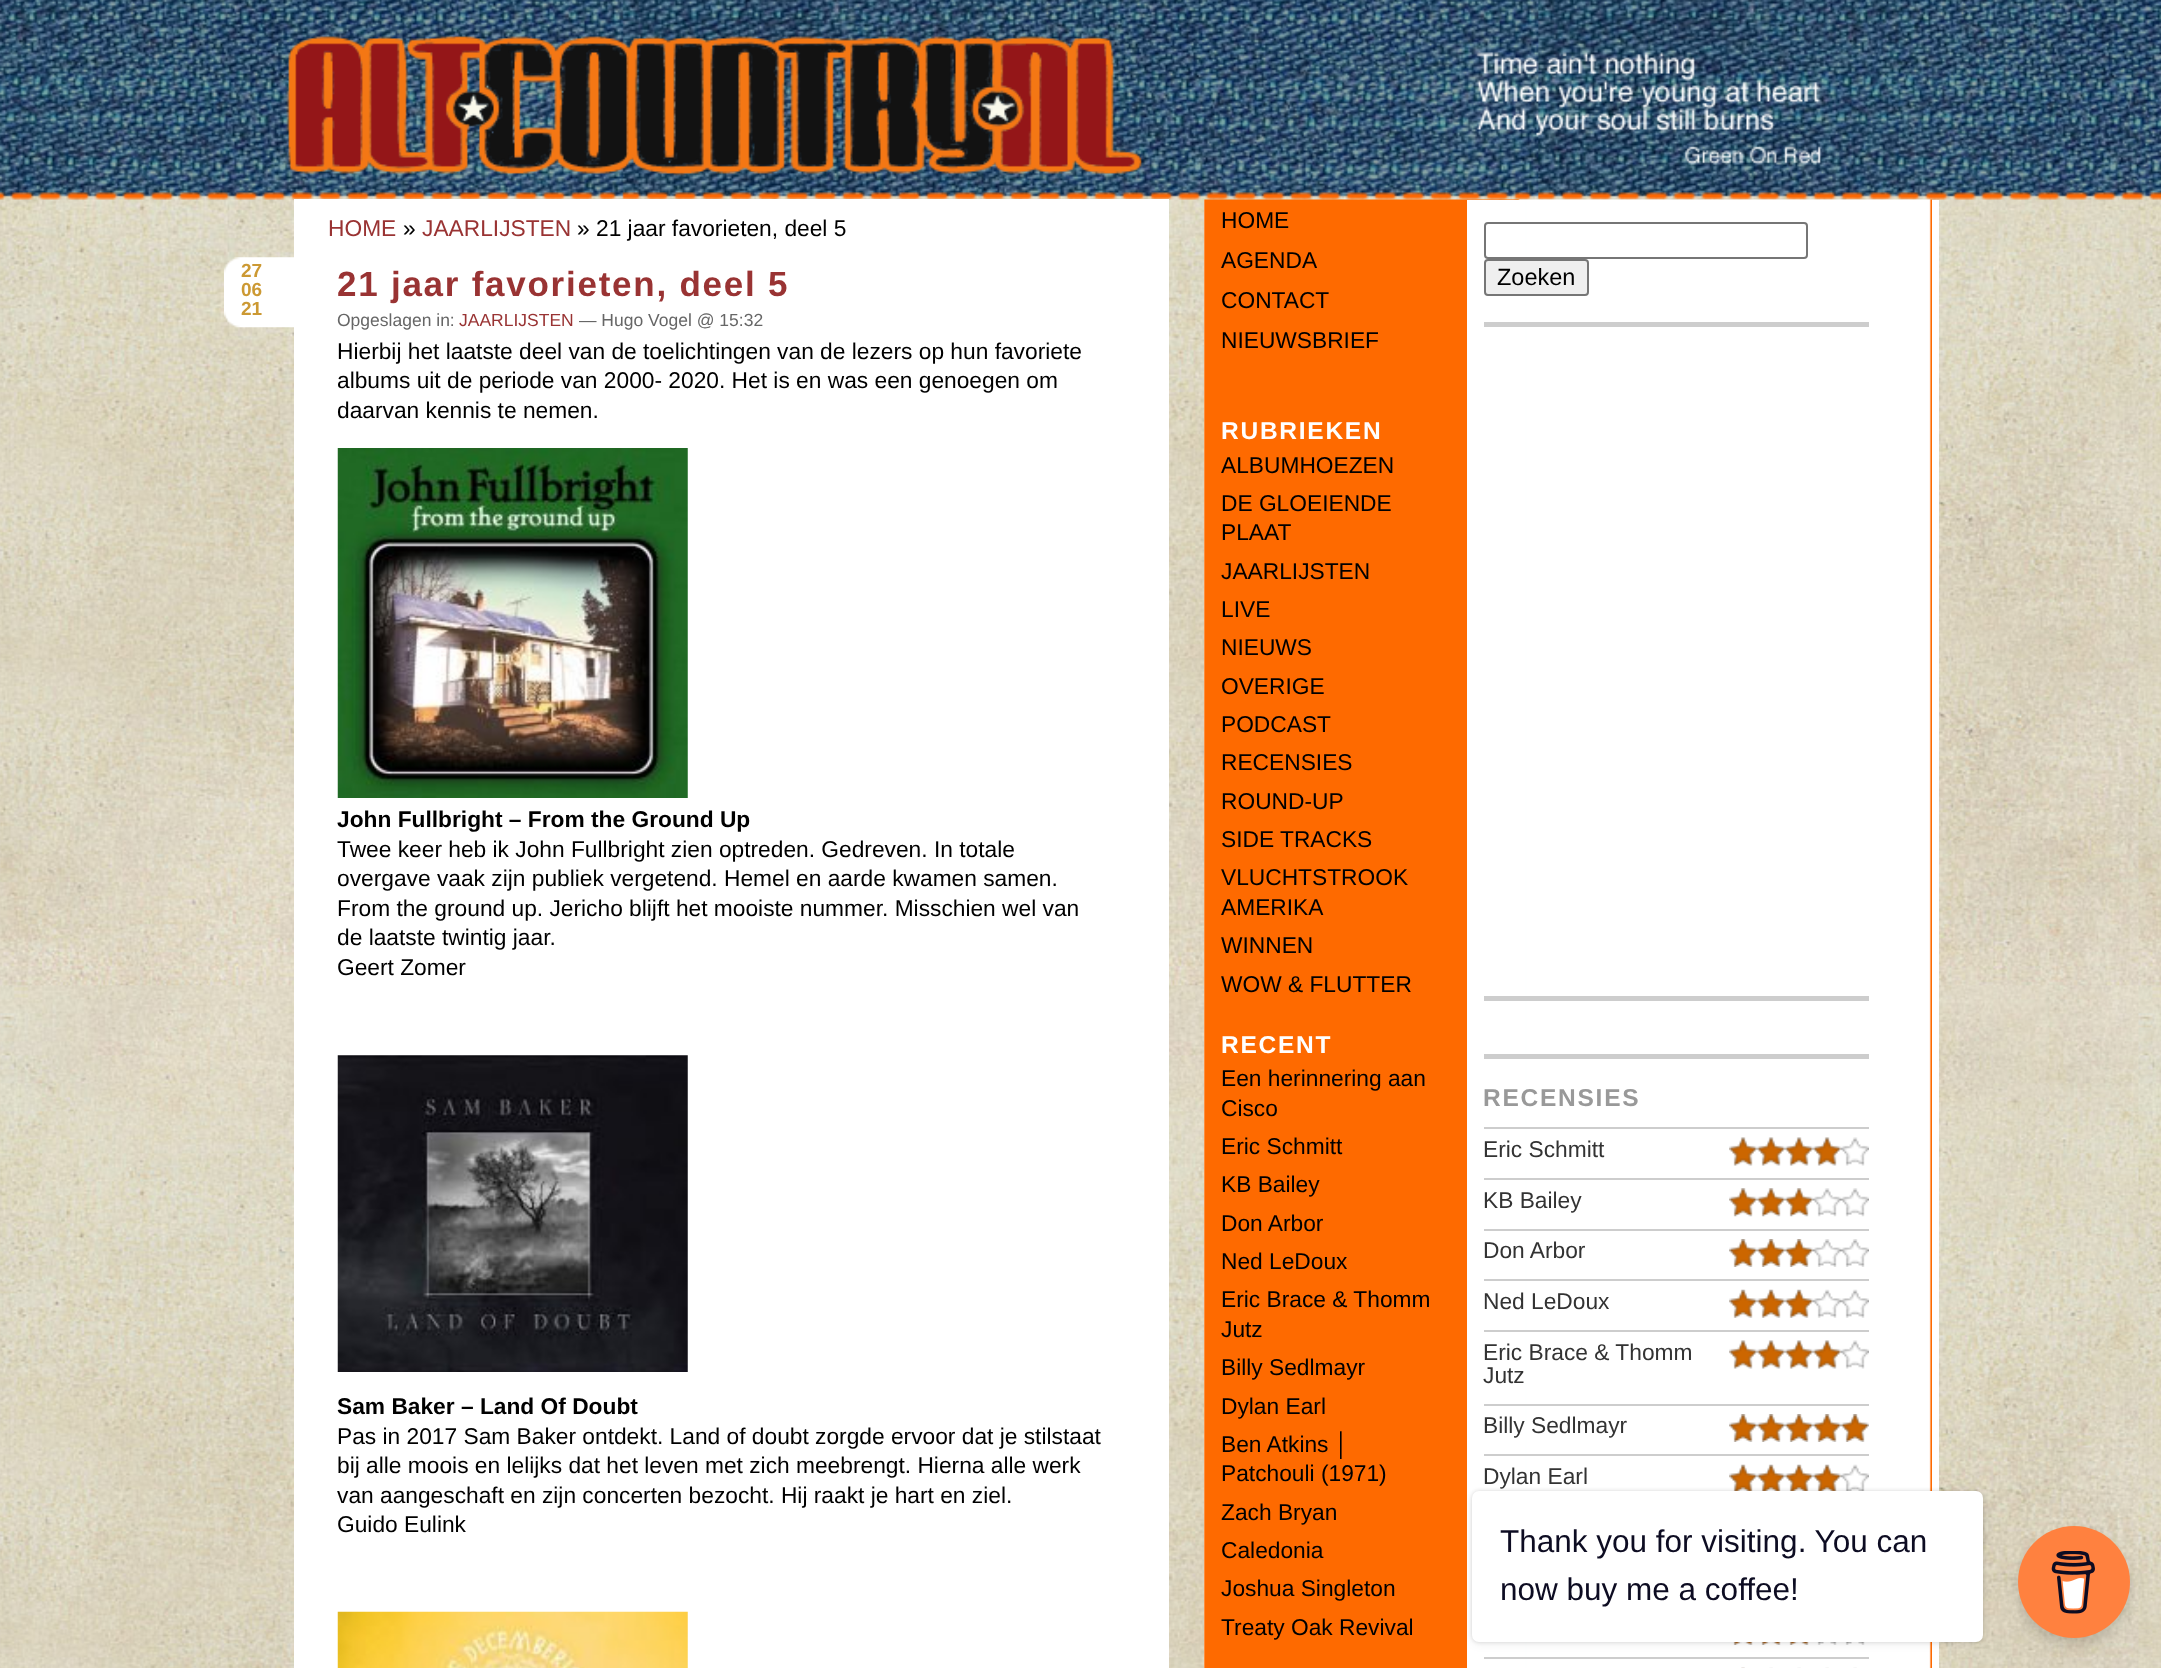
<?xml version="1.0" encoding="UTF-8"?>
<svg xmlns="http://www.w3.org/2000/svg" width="2161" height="1668">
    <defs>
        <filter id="blur1" x="-50%" y="-200%" width="200%" height="500%"><feGaussianBlur stdDeviation="2"/></filter>
        <filter id="blur2" x="-50%" y="-200%" width="200%" height="500%"><feGaussianBlur stdDeviation="4.5"/></filter>
        <filter id="blur3" x="-50%" y="-200%" width="200%" height="500%"><feGaussianBlur stdDeviation="7"/></filter>
    </defs>
    <rect width="100%" height="100%" fill="#FFFFFF"/>
    <image x="0" y="195" width="2161" height="1473" href="img_01.png"/>
    <image x="0" y="0" width="2161" height="200" href="img_02.png"/>
    <image x="286" y="36" width="1535" height="140" href="img_03.png"/>
    <rect x="294" y="199" width="875" height="1469" fill="#FFFFFF"/>
    <text x="328" y="236" font-family="Liberation Sans" font-size="22.75" fill="#993333">HOME</text>
    <text x="403" y="236" font-family="Liberation Sans" font-size="22.75" fill="#000000">»</text>
    <text x="422" y="236" font-family="Liberation Sans" font-size="22.75" fill="#993333">JAARLIJSTEN</text>
    <text x="577" y="236" font-family="Liberation Sans" font-size="22.75" fill="#000000">» 21 jaar favorieten, deel 5</text>
    <image x="224" y="257" width="70" height="71" href="img_04.png"/>
    <text font-family="Liberation Sans" font-size="19" font-weight="700" fill="#CC9933">
        <tspan x="241" y="277">27</tspan>
        <tspan x="241" y="296">06</tspan>
        <tspan x="241" y="315">21</tspan>
    </text>
    <text x="337" y="296" font-family="Liberation Sans" font-size="35" font-weight="700" letter-spacing="1.75" fill="#993333">21 jaar favorieten, deel 5</text>
    <text x="337" y="326" font-family="Liberation Sans" font-size="17.5" fill="#666666">Opgeslagen in:</text>
    <text x="459" y="326" font-family="Liberation Sans" font-size="17.5" fill="#993333">JAARLIJSTEN</text>
    <text x="579" y="326" font-family="Liberation Sans" font-size="17.5" fill="#666666">— Hugo Vogel @ 15:32</text>
    <text font-family="Liberation Sans" font-size="22.75" fill="#000000">
        <tspan x="337" y="359">Hierbij het laatste deel van de toelichtingen van de lezers op hun favoriete</tspan>
        <tspan x="337" y="388">albums uit de periode van 2000- 2020. Het is en was een genoegen om</tspan>
        <tspan x="337" y="418">daarvan kennis te nemen.</tspan>
    </text>
    <image x="337" y="448" width="351" height="350" href="img_05.png"/>
    <text x="337" y="827" font-family="Liberation Sans" font-size="22.75" font-weight="700" fill="#000000">John Fullbright – From the Ground Up</text>
    <text font-family="Liberation Sans" font-size="22.75" fill="#000000">
        <tspan x="337" y="857">Twee keer heb ik John Fullbright zien optreden. Gedreven. In totale</tspan>
        <tspan x="337" y="886">overgave vaak zijn publiek vergetend. Hemel en aarde kwamen samen.</tspan>
        <tspan x="337" y="916">From the ground up. Jericho blijft het mooiste nummer. Misschien wel van</tspan>
        <tspan x="337" y="945">de laatste twintig jaar.</tspan>
        <tspan x="337" y="975">Geert Zomer</tspan>
    </text>
    <image x="337" y="1055" width="351" height="317" href="img_06.png"/>
    <text x="337" y="1414" font-family="Liberation Sans" font-size="22.75" font-weight="700" fill="#000000">Sam Baker – Land Of Doubt</text>
    <text font-family="Liberation Sans" font-size="22.75" fill="#000000">
        <tspan x="337" y="1444">Pas in 2017 Sam Baker ontdekt. Land of doubt zorgde ervoor dat je stilstaat</tspan>
        <tspan x="337" y="1473">bij alle moois en lelijks dat het leven met zich meebrengt. Hierna alle werk</tspan>
        <tspan x="337" y="1503">van aangeschaft en zijn concerten bezocht. Hij raakt je hart en ziel.</tspan>
        <tspan x="337" y="1532">Guido Eulink</tspan>
    </text>
    <image x="337" y="1611" width="351" height="57" href="img_07.png"/>
    <rect x="1932" y="200" width="7" height="1468" fill="#FFFFFF"/>
    <image x="1204" y="199" width="728" height="1469" href="img_08.png"/>
    <text font-family="Liberation Sans" font-size="22.75" fill="#000000">
        <tspan x="1221" y="228">HOME</tspan>
        <tspan x="1221" y="268">AGENDA</tspan>
        <tspan x="1221" y="308">CONTACT</tspan>
        <tspan x="1221" y="348">NIEUWSBRIEF</tspan>
    </text>
    <text x="1221" y="439" font-family="Liberation Sans" font-size="24.5" font-weight="700" letter-spacing="1.75" fill="#FFFFFF">RUBRIEKEN</text>
    <text font-family="Liberation Sans" font-size="22.75" fill="#000000">
        <tspan x="1221" y="473">ALBUMHOEZEN</tspan>
        <tspan x="1221" y="511">DE GLOEIENDE</tspan>
        <tspan x="1221" y="540">PLAAT</tspan>
        <tspan x="1221" y="579">JAARLIJSTEN</tspan>
        <tspan x="1221" y="617">LIVE</tspan>
        <tspan x="1221" y="655">NIEUWS</tspan>
        <tspan x="1221" y="694">OVERIGE</tspan>
        <tspan x="1221" y="732">PODCAST</tspan>
        <tspan x="1221" y="770">RECENSIES</tspan>
        <tspan x="1221" y="809">ROUND-UP</tspan>
        <tspan x="1221" y="847">SIDE TRACKS</tspan>
        <tspan x="1221" y="885">VLUCHTSTROOK</tspan>
        <tspan x="1221" y="915">AMERIKA</tspan>
        <tspan x="1221" y="953">WINNEN</tspan>
        <tspan x="1221" y="992">WOW &amp; FLUTTER</tspan>
    </text>
    <text x="1221" y="1053" font-family="Liberation Sans" font-size="24.5" font-weight="700" letter-spacing="1.75" fill="#FFFFFF">RECENT</text>
    <text font-family="Liberation Sans" font-size="22.75" fill="#000000">
        <tspan x="1221" y="1086">Een herinnering aan</tspan>
        <tspan x="1221" y="1116">Cisco</tspan>
        <tspan x="1221" y="1154">Eric Schmitt</tspan>
        <tspan x="1221" y="1192">KB Bailey</tspan>
        <tspan x="1221" y="1231">Don Arbor</tspan>
        <tspan x="1221" y="1269">Ned LeDoux</tspan>
        <tspan x="1221" y="1307">Eric Brace &amp; Thomm</tspan>
        <tspan x="1221" y="1337">Jutz</tspan>
        <tspan x="1221" y="1375">Billy Sedlmayr</tspan>
        <tspan x="1221" y="1414">Dylan Earl</tspan>
        <tspan x="1221" y="1452">Ben Atkins │</tspan>
        <tspan x="1221" y="1481">Patchouli (1971)</tspan>
        <tspan x="1221" y="1520">Zach Bryan</tspan>
        <tspan x="1221" y="1558">Caledonia</tspan>
        <tspan x="1221" y="1596">Joshua Singleton</tspan>
        <tspan x="1221" y="1635">Treaty Oak Revival</tspan>
    </text>
    <rect x="1467" y="200" width="58" height="1468" fill="#FFFFFF"/>
    <rect x="1485" y="223" width="322" height="35" rx="3" fill="none" stroke="#767676" stroke-width="2"/>
    <rect x="1485" y="260" width="103" height="35" rx="3" fill="#EFEFEF" stroke="#767676" stroke-width="2"/>
    <text x="1497" y="285" font-family="Liberation Sans" font-size="23.5" fill="#000000">Zoeken</text>
    <rect x="1484" y="322" width="385" height="5" fill="#CDCDCD"/>
    <rect x="1484" y="996" width="385" height="5" fill="#CDCDCD"/>
    <rect x="1484" y="1054" width="385" height="5" fill="#CDCDCD"/>
    <text x="1483" y="1106" font-family="Liberation Sans" font-size="24.5" font-weight="700" letter-spacing="1.75" fill="#999999">RECENSIES</text>
    <rect x="1484" y="1127" width="385" height="2" fill="#CDCDCD"/>
    <text x="1483" y="1157" font-family="Liberation Sans" font-size="22.75" fill="#333333">Eric Schmitt</text>
    <image x="1729" y="1137" width="28" height="29" href="img_09.png"/>
    <image x="1757" y="1137" width="28" height="29" href="img_10.png"/>
    <image x="1785" y="1137" width="28" height="29" href="img_11.png"/>
    <image x="1813" y="1137" width="28" height="29" href="img_11.png"/>
    <image x="1841" y="1137" width="28" height="29" href="img_12.png"/>
    <rect x="1484" y="1178" width="385" height="2" fill="#CDCDCD"/>
    <text x="1483" y="1208" font-family="Liberation Sans" font-size="22.75" fill="#333333">KB Bailey</text>
    <image x="1729" y="1188" width="28" height="29" href="img_13.png"/>
    <image x="1757" y="1188" width="28" height="29" href="img_14.png"/>
    <image x="1785" y="1188" width="28" height="29" href="img_15.png"/>
    <image x="1813" y="1188" width="28" height="29" href="img_16.png"/>
    <image x="1841" y="1188" width="28" height="29" href="img_16.png"/>
    <rect x="1484" y="1229" width="385" height="2" fill="#CDCDCD"/>
    <text x="1483" y="1258" font-family="Liberation Sans" font-size="22.75" fill="#333333">Don Arbor</text>
    <image x="1729" y="1239" width="28" height="28" href="img_17.png"/>
    <image x="1757" y="1239" width="28" height="28" href="img_18.png"/>
    <image x="1785" y="1239" width="28" height="28" href="img_19.png"/>
    <image x="1813" y="1239" width="28" height="28" href="img_20.png"/>
    <image x="1841" y="1239" width="28" height="28" href="img_20.png"/>
    <rect x="1484" y="1279" width="385" height="2" fill="#CDCDCD"/>
    <text x="1483" y="1309" font-family="Liberation Sans" font-size="22.75" fill="#333333">Ned LeDoux</text>
    <image x="1729" y="1289" width="28" height="29" href="img_21.png"/>
    <image x="1757" y="1289" width="28" height="29" href="img_22.png"/>
    <image x="1785" y="1289" width="28" height="29" href="img_23.png"/>
    <image x="1813" y="1289" width="28" height="29" href="img_24.png"/>
    <image x="1841" y="1289" width="28" height="29" href="img_24.png"/>
    <rect x="1484" y="1330" width="385" height="2" fill="#CDCDCD"/>
    <text x="1483" y="1360" font-family="Liberation Sans" font-size="22.75" fill="#333333">Eric Brace &amp; Thomm</text>
    <image x="1729" y="1340" width="28" height="29" href="img_09.png"/>
    <image x="1757" y="1340" width="28" height="29" href="img_10.png"/>
    <image x="1785" y="1340" width="28" height="29" href="img_11.png"/>
    <image x="1813" y="1340" width="28" height="29" href="img_11.png"/>
    <image x="1841" y="1340" width="28" height="29" href="img_12.png"/>
    <text x="1483" y="1383" font-family="Liberation Sans" font-size="22.75" fill="#333333">Jutz</text>
    <rect x="1484" y="1404" width="385" height="2" fill="#CDCDCD"/>
    <text x="1483" y="1433" font-family="Liberation Sans" font-size="22.75" fill="#333333">Billy Sedlmayr</text>
    <image x="1729" y="1414" width="28" height="28" href="img_17.png"/>
    <image x="1757" y="1414" width="28" height="28" href="img_18.png"/>
    <image x="1785" y="1414" width="28" height="28" href="img_19.png"/>
    <image x="1813" y="1414" width="28" height="28" href="img_19.png"/>
    <image x="1841" y="1414" width="28" height="28" href="img_19.png"/>
    <rect x="1484" y="1454" width="385" height="2" fill="#CDCDCD"/>
    <text x="1483" y="1484" font-family="Liberation Sans" font-size="22.75" fill="#333333">Dylan Earl</text>
    <image x="1729" y="1464" width="28" height="27" href="img_25.png"/>
    <image x="1757" y="1464" width="28" height="27" href="img_26.png"/>
    <image x="1785" y="1464" width="28" height="27" href="img_27.png"/>
    <image x="1813" y="1464" width="28" height="27" href="img_27.png"/>
    <image x="1841" y="1464" width="28" height="27" href="img_28.png"/>
    <image x="1729" y="1642" width="28" height="3" href="img_29.png"/>
    <image x="1757" y="1642" width="28" height="3" href="img_29.png"/>
    <image x="1785" y="1642" width="28" height="3" href="img_30.png"/>
    <image x="1813" y="1642" width="28" height="3" href="img_31.png"/>
    <image x="1841" y="1642" width="28" height="3" href="img_31.png"/>
    <rect x="1484" y="1657" width="385" height="2" fill="#CDCDCD"/>
    <image x="1741" y="1667" width="4" height="1" href="img_32.png"/>
    <image x="1769" y="1667" width="4" height="1" href="img_33.png"/>
    <image x="1797" y="1667" width="4" height="1" href="img_33.png"/>
    <image x="1825" y="1667" width="4" height="1" href="img_33.png"/>
    <image x="1853" y="1667" width="4" height="1" href="img_33.png"/>
    <rect x="1472" y="1491" width="511" height="151" rx="7" fill="#000000" fill-opacity="0.15" filter="url(#blur1)"/>
    <rect x="1472" y="1495" width="511" height="150" rx="7" fill="#000000" fill-opacity="0.05" filter="url(#blur2)"/>
    <rect x="1472" y="1491" width="511" height="151" rx="7" fill="#FFFFFF"/>
    <text font-family="Liberation Sans" font-size="31.5" fill="#0D0C22">
        <tspan x="1500" y="1552">Thank you for visiting. You can</tspan>
        <tspan x="1500" y="1600">now buy me a coffee!</tspan>
    </text>
    <rect x="2018" y="1533" width="112" height="112" rx="56" fill="#000000" fill-opacity="0.15" filter="url(#blur3)"/>
    <circle cx="2074" cy="1582" r="56" fill="#FF813F"/>
    <image x="2051" y="1551" width="44" height="63" href="img_34.png"/>
</svg>
